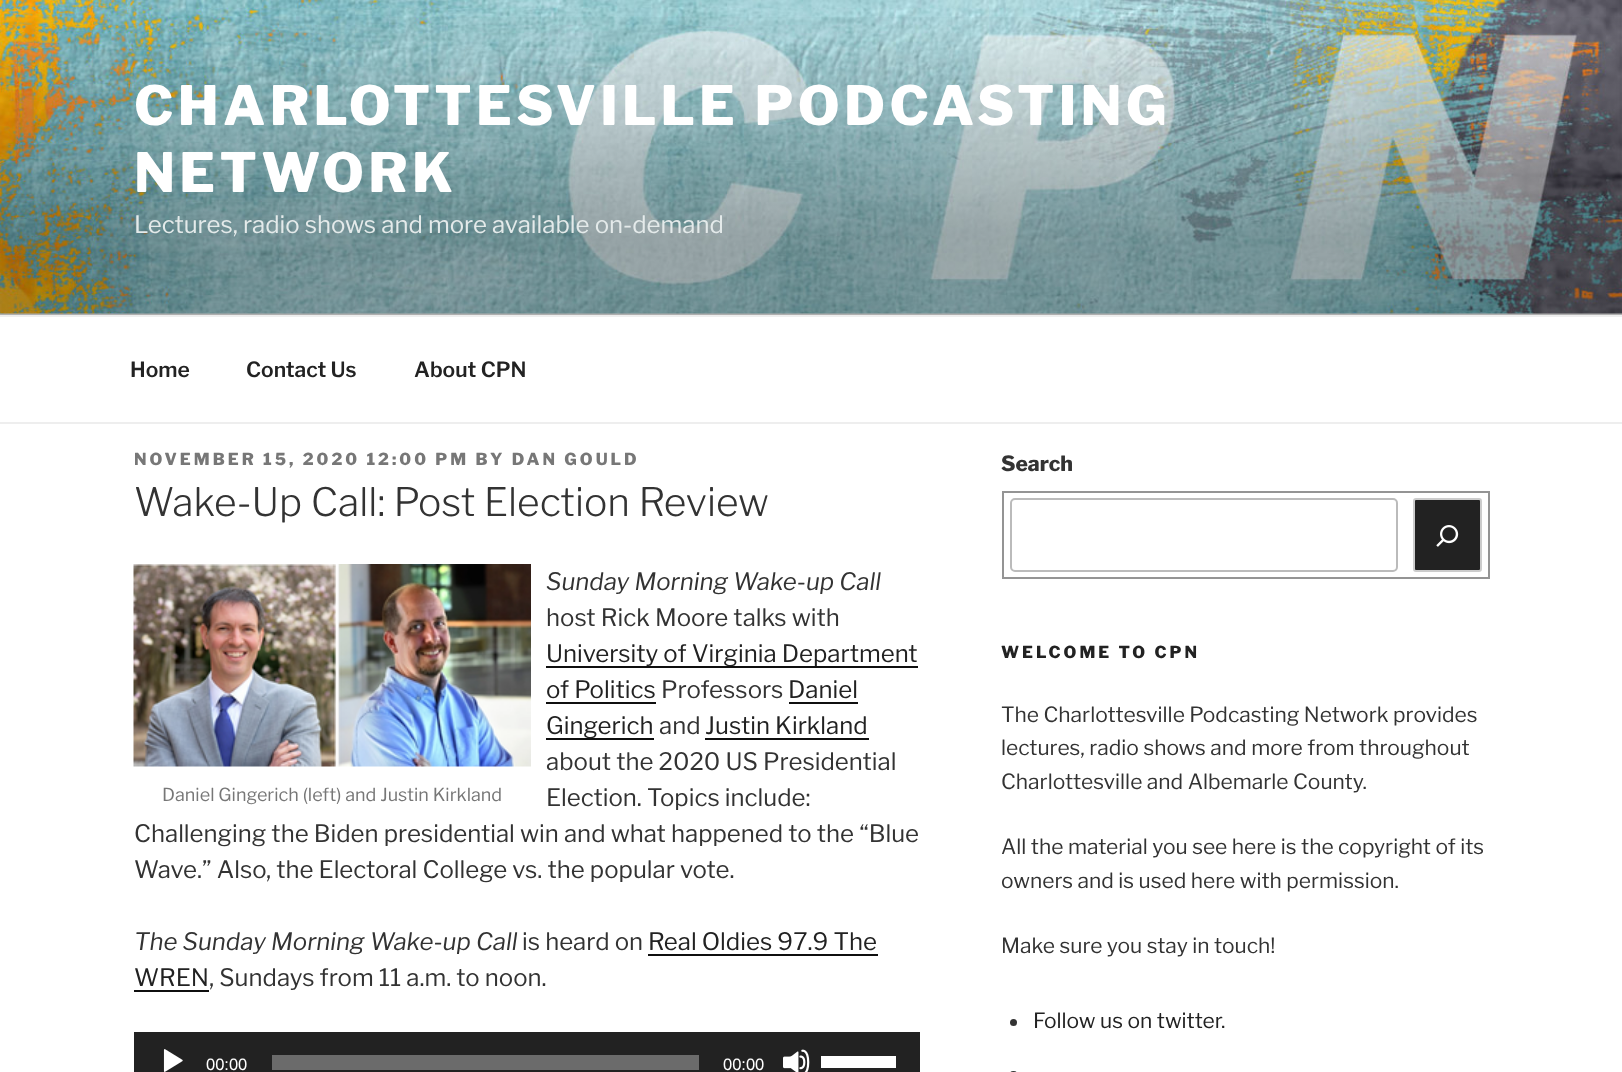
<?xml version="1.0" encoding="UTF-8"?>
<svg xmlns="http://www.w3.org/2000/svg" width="1622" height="1072">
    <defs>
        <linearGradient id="g1" gradientUnits="userSpaceOnUse" x1="812" y1="0" x2="812" y2="315"><stop offset="0" stop-color="#000000" stop-opacity="0"/><stop offset="0.75" stop-color="#000000" stop-opacity="0.3"/><stop offset="1" stop-color="#000000" stop-opacity="0.3"/></linearGradient>
    </defs>
    <rect width="100%" height="100%" fill="#FFFFFF"/>
    <rect x="0" y="313" width="1622" height="2" fill="#FAFAFA"/>
    <image x="0" y="0" width="1622" height="314" href="img_01.png"/>
    <rect x="0" y="17" width="1622" height="298" fill="url(#g1)"/>
    <text font-family="'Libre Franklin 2'" font-size="54" font-weight="100" letter-spacing="4.3" fill="#FFFFFF">
        <tspan x="134" y="125">CHARLOTTESVILLE PODCASTING</tspan>
        <tspan x="134" y="192">NETWORK</tspan>
    </text>
    <text x="134" y="233" font-family="Libre Franklin" font-size="24" font-weight="100" fill="#E4EAEA">Lectures, radio shows and more available on-demand</text>
    <rect x="0" y="315" width="1622" height="2" fill="#EEEEEE"/>
    <rect x="0" y="422" width="1622" height="2" fill="#EEEEEE"/>
    <text x="130" y="377" font-family="'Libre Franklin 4'" font-size="21" font-weight="100" fill="#222222">Home</text>
    <text x="246" y="377" font-family="'Libre Franklin 4'" font-size="21" font-weight="100" fill="#222222">Contact Us</text>
    <text x="414" y="377" font-family="'Libre Franklin 4'" font-size="21" font-weight="100" fill="#222222">About CPN</text>
    <text x="134" y="465" font-family="'Libre Franklin 2'" font-size="16.5" font-weight="100" letter-spacing="3" fill="#777777">NOVEMBER 15, 2020 12:00 PM BY DAN GOULD</text>
    <text x="134" y="516" font-family="'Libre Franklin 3'" font-size="39" font-weight="100" fill="#333333">Wake-Up Call: Post Election Review</text>
    <text x="546" y="590" font-family="Libre Franklin" font-size="24" font-weight="100" font-style="italic" fill="#333333">Sunday Morning Wake-up Call</text>
    <text x="546" y="626" font-family="Libre Franklin" font-size="24" font-weight="100" fill="#333333">host Rick Moore talks with</text>
    <rect x="546" y="666" width="372" height="2" fill="#0F0F0F"/>
    <text font-family="Libre Franklin" font-size="24" font-weight="100" fill="#222222">
        <tspan x="546" y="662">University of Virginia Department</tspan>
        <tspan x="546" y="698">of Politics</tspan>
    </text>
    <rect x="546" y="702" width="110" height="2" fill="#0F0F0F"/>
    <text x="661" y="698" font-family="Libre Franklin" font-size="24" font-weight="100" fill="#333333">Professors</text>
    <text x="788" y="698" font-family="Libre Franklin" font-size="24" font-weight="100" fill="#222222">Daniel</text>
    <rect x="789" y="702" width="69" height="2" fill="#0F0F0F"/>
    <rect x="546" y="738" width="108" height="2" fill="#0F0F0F"/>
    <text x="546" y="734" font-family="Libre Franklin" font-size="24" font-weight="100" fill="#222222">Gingerich</text>
    <text x="659" y="734" font-family="Libre Franklin" font-size="24" font-weight="100" fill="#333333">and</text>
    <text x="705" y="734" font-family="Libre Franklin" font-size="24" font-weight="100" fill="#222222">Justin Kirkland</text>
    <rect x="705" y="738" width="164" height="2" fill="#0F0F0F"/>
    <text font-family="Libre Franklin" font-size="24" font-weight="100" fill="#333333">
        <tspan x="546" y="770">about the 2020 US Presidential</tspan>
        <tspan x="546" y="806">Election. Topics include:</tspan>
    </text>
    <text font-family="Libre Franklin" font-size="24" font-weight="100" fill="#333333">
        <tspan x="134" y="842">Challenging the Biden presidential win and what happened to the “Blue</tspan>
        <tspan x="134" y="878">Wave.” Also, the Electoral College vs. the popular vote.</tspan>
    </text>
    <image x="133" y="564" width="398" height="203" href="img_02.png"/>
    <text x="162" y="801" font-family="Libre Franklin" font-size="18" font-weight="100" fill="#777777">Daniel Gingerich (left) and Justin Kirkland</text>
    <text x="134" y="950" font-family="Libre Franklin" font-size="24" font-weight="100" font-style="italic" fill="#333333">The Sunday Morning Wake-up Call</text>
    <text x="522" y="950" font-family="Libre Franklin" font-size="24" font-weight="100" fill="#333333">is heard on</text>
    <text x="648" y="950" font-family="Libre Franklin" font-size="24" font-weight="100" fill="#222222">Real Oldies 97.9 The</text>
    <rect x="648" y="954" width="230" height="2" fill="#0F0F0F"/>
    <text x="134" y="986" font-family="Libre Franklin" font-size="24" font-weight="100" fill="#222222">WREN</text>
    <rect x="134" y="990" width="75" height="2" fill="#0F0F0F"/>
    <text x="209" y="986" font-family="Libre Franklin" font-size="24" font-weight="100" fill="#333333">, Sundays from 11 a.m. to noon.</text>
    <rect x="134" y="1032" width="786" height="40" fill="#222222"/>
    <image x="163" y="1049" width="20" height="23" href="img_03.png"/>
    <text x="206" y="1070" font-family="Liberation Sans" font-size="16.5" fill="#FFFFFF">00:00</text>
    <rect x="272" y="1055" width="427" height="15" fill="#6B6B6B"/>
    <text x="723" y="1070" font-family="Liberation Sans" font-size="16.5" fill="#FFFFFF">00:00</text>
    <image x="783" y="1049" width="27" height="23" href="img_04.png"/>
    <rect x="821" y="1056" width="75" height="12" fill="#FFFFFF"/>
    <text x="1001" y="471" font-family="'Libre Franklin 2'" font-size="21" font-weight="100" fill="#333333">Search</text>
    <rect x="1003" y="492" width="486" height="86" fill="none" stroke="#949494" stroke-width="2"/>
    <rect x="1011" y="499" width="386" height="72" rx="4" fill="none" stroke="#BBBBBB" stroke-width="2"/>
    <rect x="1414" y="499" width="67" height="72" rx="2" fill="#222222" stroke="#CCCCCC" stroke-width="2"/>
    <image x="1436" y="525" width="23" height="22" href="img_05.png"/>
    <text x="1001" y="658" font-family="'Libre Franklin 2'" font-size="16.5" font-weight="100" letter-spacing="3" fill="#222222">WELCOME TO CPN</text>
    <text font-family="Libre Franklin" font-size="21" font-weight="100" fill="#333333">
        <tspan x="1001" y="722">The Charlottesville Podcasting Network provides</tspan>
        <tspan x="1001" y="755">lectures, radio shows and more from throughout</tspan>
        <tspan x="1001" y="789">Charlottesville and Albemarle County.</tspan>
    </text>
    <text font-family="Libre Franklin" font-size="21" font-weight="100" fill="#333333">
        <tspan x="1001" y="854">All the material you see here is the copyright of its</tspan>
        <tspan x="1001" y="888">owners and is used here with permission.</tspan>
    </text>
    <text x="1001" y="953" font-family="Libre Franklin" font-size="21" font-weight="100" fill="#333333">Make sure you stay in touch!</text>
    <circle cx="1013.5" cy="1022.5" r="3.5" fill="#333333"/>
    <text x="1033" y="1028" font-family="Libre Franklin" font-size="21" font-weight="100" fill="#222222">Follow us on twitter.</text>
    <rect x="1010" y="1071" width="7" height="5" rx="3.5" fill="#333333"/>
</svg>
